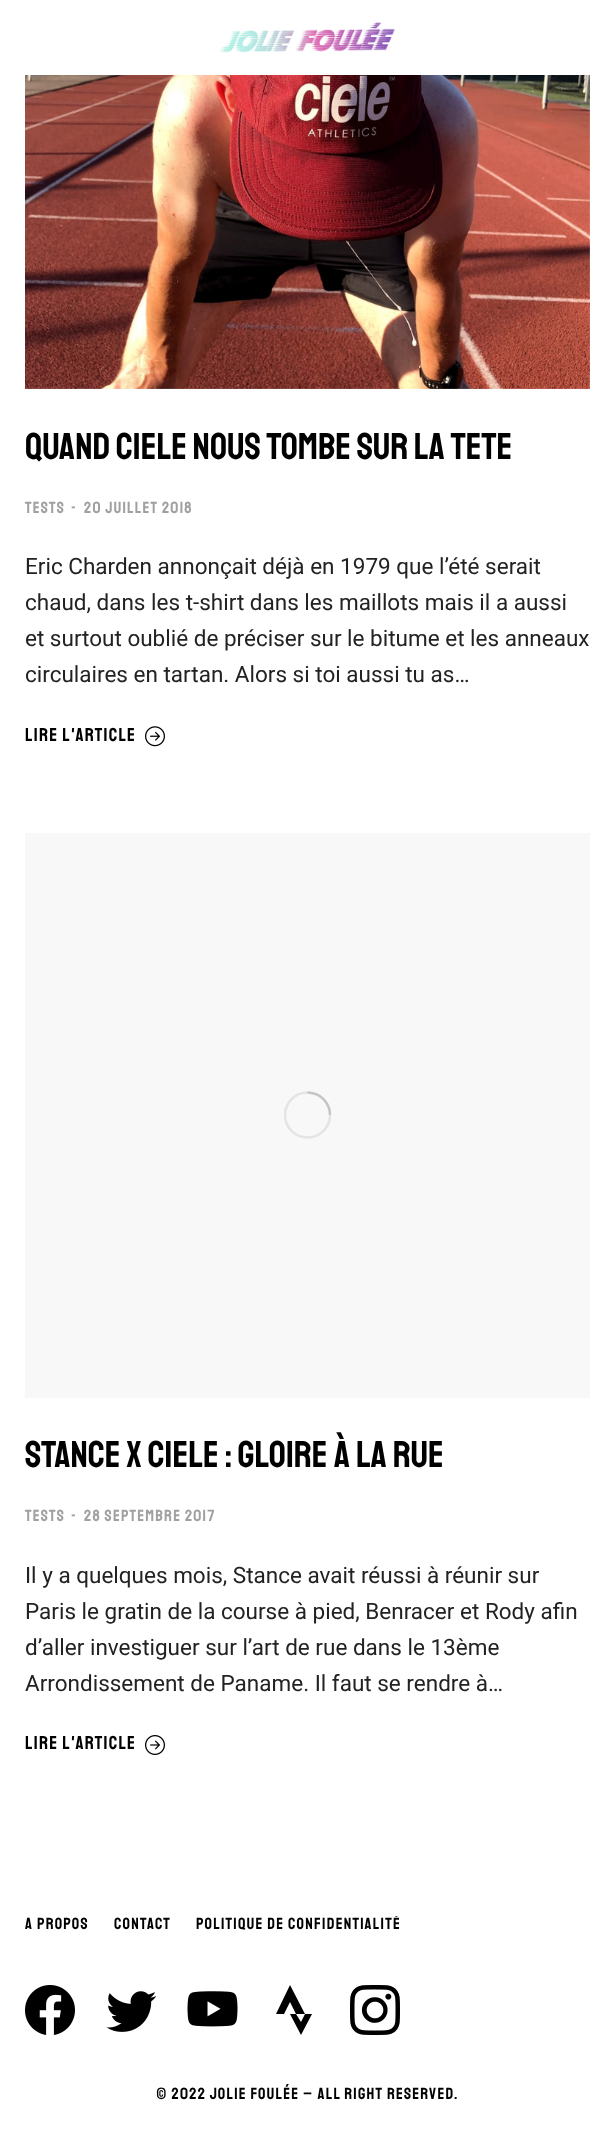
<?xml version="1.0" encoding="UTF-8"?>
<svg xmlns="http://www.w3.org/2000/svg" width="614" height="2155">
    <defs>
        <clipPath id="clip1"><rect x="284" y="1091" width="47" height="48"/></clipPath>
        <clipPath id="clip2"><rect x="196" y="1916" width="205" height="19"/></clipPath>
    </defs>
    <rect width="100%" height="100%" fill="#FFFFFF"/>
    <image x="220" y="22" width="175" height="31" href="img_01.png"/>
    <image x="25" y="75" width="565" height="314" href="img_02.png"/>
    <text x="25" y="459" font-family="Staatliches" font-size="37.5" fill="#000000">QUAND CIELE NOUS TOMBE SUR LA TETE</text>
    <text x="25" y="513" font-family="Staatliches" font-size="16.25" letter-spacing="1.25" fill="#A0A0A0">TESTS</text>
    <text x="71" y="513" font-family="Staatliches" font-size="16.25" letter-spacing="1.25" fill="#A0A0A0">-</text>
    <text x="84" y="513" font-family="Staatliches" font-size="16.25" letter-spacing="1.25" fill="#A0A0A0">20 JUILLET 2018</text>
    <text font-family="Roboto" font-size="22.5" fill="#222222">
        <tspan x="25" y="574">Eric Charden annonçait déjà en 1979 que l’été serait</tspan>
        <tspan x="25" y="610">chaud, dans les t-shirt dans les maillots mais il a aussi</tspan>
        <tspan x="25" y="646">et surtout oublié de préciser sur le bitume et les anneaux</tspan>
        <tspan x="25" y="682">circulaires en tartan. Alors si toi aussi tu as…</tspan>
    </text>
    <text x="25" y="741" font-family="Staatliches" font-size="18.75" letter-spacing="1.25" fill="#000000">LIRE L'ARTICLE</text>
    <image x="145" y="726" width="20" height="21" href="img_03.png"/>
    <rect x="25" y="833" width="565" height="565" fill="#F8F8F8"/>
    <g clip-path="url(#clip1)">
        <circle cx="307.5" cy="1115" r="22.5" fill="none" stroke="#E4E4E4" stroke-width="2.5"/>
    </g>
    <path d="M 330 1115 C 330 1102.5 320 1092.5 307.5 1092.5" fill="none" stroke="#666666" stroke-opacity="0.25" stroke-width="2.5"/>
    <text x="25" y="1467" font-family="Staatliches" font-size="37.5" fill="#000000">STANCE x CIELE : GLOIRE À LA RUE</text>
    <text x="25" y="1521" font-family="Staatliches" font-size="16.25" letter-spacing="1.25" fill="#A0A0A0">TESTS</text>
    <text x="71" y="1521" font-family="Staatliches" font-size="16.25" letter-spacing="1.25" fill="#A0A0A0">-</text>
    <text x="84" y="1521" font-family="Staatliches" font-size="16.25" letter-spacing="1.25" fill="#A0A0A0">28 SEPTEMBRE 2017</text>
    <text font-family="Roboto" font-size="22.5" fill="#222222">
        <tspan x="25" y="1583">Il y a quelques mois, Stance avait réussi à réunir sur</tspan>
        <tspan x="25" y="1619">Paris le gratin de la course à pied, Benracer et Rody afin</tspan>
        <tspan x="25" y="1655">d’aller investiguer sur l’art de rue dans le 13ème</tspan>
        <tspan x="25" y="1691">Arrondissement de Paname. Il faut se rendre à…</tspan>
    </text>
    <text x="25" y="1749" font-family="Staatliches" font-size="18.75" letter-spacing="1.25" fill="#000000">LIRE L'ARTICLE</text>
    <image x="145" y="1735" width="20" height="20" href="img_04.png"/>
    <text x="25" y="1929" font-family="Staatliches" font-size="16.25" letter-spacing="1.25" fill="#000000">A PROPOS</text>
    <text x="114" y="1929" font-family="Staatliches" font-size="16.25" letter-spacing="1.25" fill="#000000">CONTACT</text>
    <g clip-path="url(#clip2)">
        <text x="196" y="1929" font-family="Staatliches" font-size="16.25" letter-spacing="1.25" fill="#000000">POLITIQUE DE CONFIDENTIALITÉ</text>
    </g>
    <image x="25" y="1985" width="50" height="50" href="img_05.png"/>
    <image x="106" y="1991" width="51" height="41" href="img_06.png"/>
    <image x="187" y="1991" width="51" height="36" href="img_07.png"/>
    <path d="M 290 1985 L 305 2014 H 296 L 290 2002 L 284 2014 H 276 Z M 305 2014 H 312 L 301 2035 L 290 2014 H 296 L 301 2022 Z" fill="#000000"/>
    <image x="350" y="1985" width="50" height="50" href="img_08.png"/>
    <text x="156" y="2099" font-family="Staatliches" font-size="16.25" letter-spacing="1.25" fill="#000000">© 2022 JOLIE FOULÉE – ALL RIGHT RESERVED.</text>
</svg>
